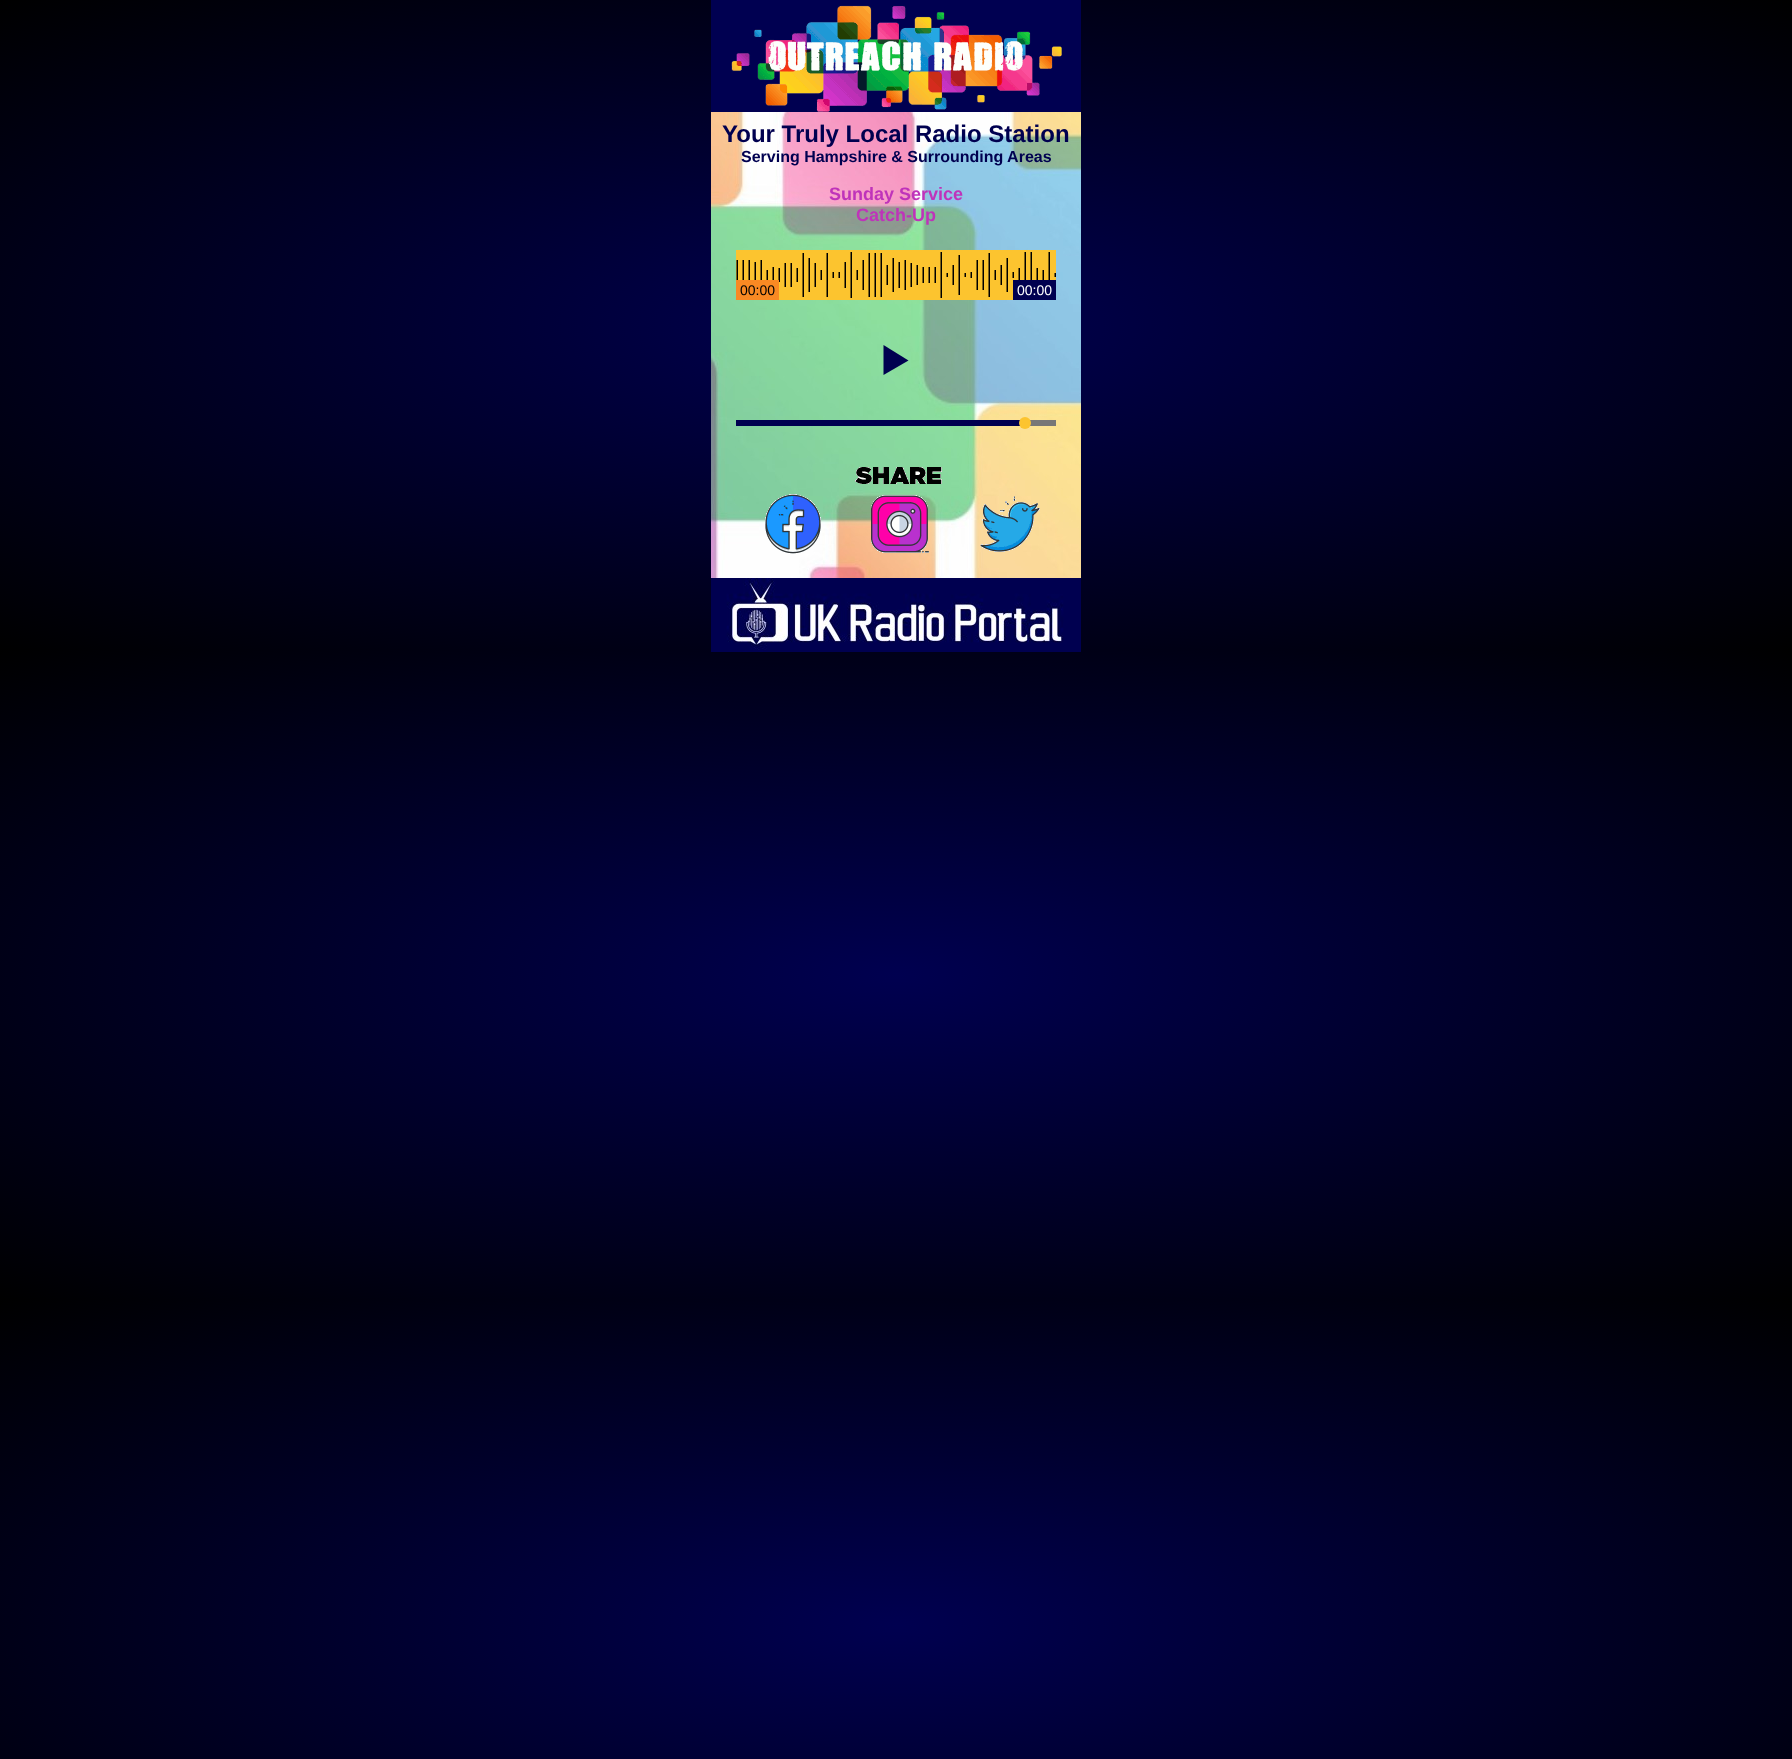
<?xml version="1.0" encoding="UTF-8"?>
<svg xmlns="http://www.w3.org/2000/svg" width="1792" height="1759">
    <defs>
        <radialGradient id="g1" gradientUnits="userSpaceOnUse" cx="0" cy="0" r="1" gradientTransform="matrix(1267 0 0 460 896 325)"><stop offset="0" stop-color="#000050"/><stop offset="1" stop-color="#000000"/></radialGradient>
        <radialGradient id="g2" gradientUnits="userSpaceOnUse" cx="0" cy="0" r="1" gradientTransform="matrix(1267 0 0 460 896 975)"><stop offset="0" stop-color="#000050"/><stop offset="1" stop-color="#000000"/></radialGradient>
        <radialGradient id="g3" gradientUnits="userSpaceOnUse" cx="0" cy="0" r="1" gradientTransform="matrix(1267 0 0 460 896 1625)"><stop offset="0" stop-color="#000050"/><stop offset="1" stop-color="#000000"/></radialGradient>
    </defs>
    <rect width="100%" height="100%" fill="#FFFFFF"/>
    <rect x="0" y="0" width="1792" height="650" fill="url(#g1)"/>
    <rect x="0" y="650" width="1792" height="650" fill="url(#g2)"/>
    <rect x="0" y="1300" width="1792" height="459" fill="url(#g3)"/>
    <image x="711" y="112" width="370" height="466" href="img_01.png"/>
    <image x="711" y="0" width="370" height="112" href="img_02.png"/>
    <text x="722" y="142" font-family="Liberation Sans" font-size="24" font-weight="700" fill="#000050">Your Truly Local Radio Station</text>
    <text x="741" y="162" font-family="Liberation Sans" font-size="16" font-weight="700" fill="#000050">Serving Hampshire &amp; Surrounding Areas</text>
    <text x="829" y="200" font-family="Liberation Sans" font-size="18" font-weight="700" fill="#BF33BA">Sunday Service</text>
    <text x="856" y="221" font-family="Liberation Sans" font-size="18" font-weight="700" fill="#BF33BA">Catch-Up</text>
    <rect x="736" y="250" width="320" height="50" fill="#FCC42F"/>
    <image x="736" y="252" width="320" height="46" href="img_03.png"/>
    <rect x="736" y="280" width="43" height="20" fill="#F98923"/>
    <text x="740" y="295" font-family="Liberation Sans" font-size="14" fill="#000000">00:00</text>
    <rect x="1013" y="280" width="43" height="20" fill="#000050"/>
    <text x="1017" y="295" font-family="Liberation Sans" font-size="14" fill="#FFFFFF">00:00</text>
    <path d="M 883.5 345 L 908.5 360.5 L 883.5 375 Z" fill="#000050"/>
    <rect x="736" y="420" width="288" height="6" fill="#000050"/>
    <rect x="1030" y="420" width="26" height="6" fill="#777777"/>
    <circle cx="1025" cy="423" r="6" fill="#FCC42F"/>
    <image x="765" y="467" width="275" height="87" href="img_04.png"/>
    <image x="711" y="578" width="370" height="74" href="img_05.png"/>
</svg>
